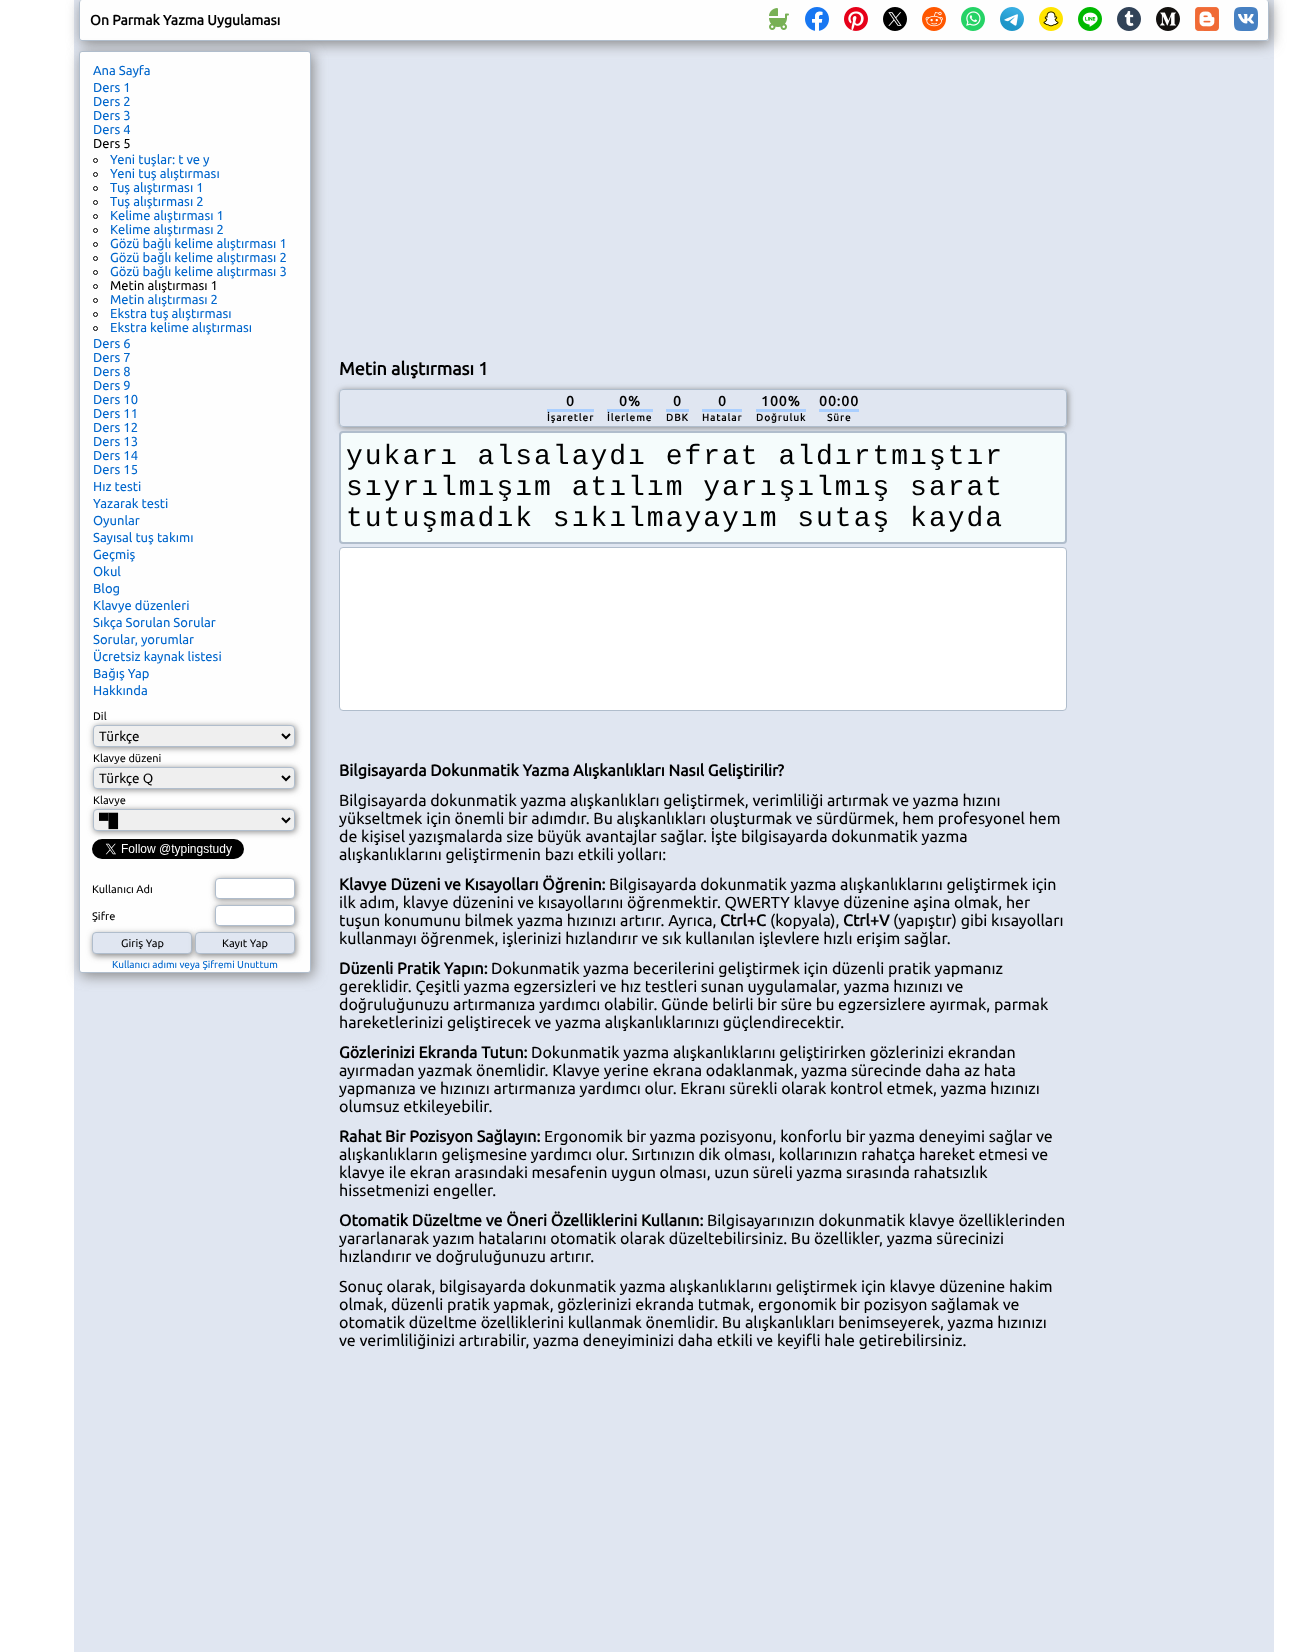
<?xml version="1.0" encoding="UTF-8"?>
<svg xmlns="http://www.w3.org/2000/svg" width="1316" height="1652">
    <defs>
        <filter id="blur1" x="-50%" y="-200%" width="200%" height="500%"><feGaussianBlur stdDeviation="7"/></filter>
        <filter id="blur2" x="-50%" y="-200%" width="200%" height="500%"><feGaussianBlur stdDeviation="3"/></filter>
        <clipPath id="clip1"><path d="M 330 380 H 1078 V 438 H 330 Z M 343 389 H 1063 C 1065 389 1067 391 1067 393 V 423 C 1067 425 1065 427 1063 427 H 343 C 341 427 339 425 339 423 V 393 C 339 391 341 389 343 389 Z" clip-rule="evenodd"/></clipPath>
    </defs>
    <rect width="100%" height="100%" fill="#FFFFFF"/>
    <rect x="74" y="0" width="1200" height="1652" fill="#E0E6F1"/>
    <rect x="81" y="3" width="1190" height="41" rx="3" fill="#888888" filter="url(#blur1)"/>
    <rect x="79" y="0" width="1190" height="41" rx="3" fill="#FEFEFE"/>
    <path d="M 82 0 H 1266 C 1268 0 1269 1 1269 3 V 38 C 1269 40 1268 41 1266 41 H 82 C 80 41 79 40 79 38 V 3 C 79 1 80 0 82 0 Z M 82 0 H 1266 C 1267 0 1268 1 1268 3 V 38 C 1268 39 1267 40 1266 40 H 82 C 81 40 80 39 80 38 V 3 C 80 1 81 0 82 0 Z" fill="#B0BDCC" fill-rule="evenodd"/>
    <text x="90" y="25" font-family="Ubuntu" font-size="14" font-weight="700" fill="#000000">On Parmak Yazma Uygulaması</text>
    <image x="769" y="8" width="20" height="22" href="img_01.png"/>
    <image x="805" y="7" width="24" height="24" href="img_02.png"/>
    <image x="844" y="7" width="24" height="24" href="img_03.png"/>
    <image x="883" y="7" width="24" height="24" href="img_04.png"/>
    <image x="922" y="7" width="24" height="24" href="img_05.png"/>
    <image x="961" y="7" width="24" height="24" href="img_06.png"/>
    <image x="1000" y="7" width="24" height="24" href="img_07.png"/>
    <image x="1039" y="7" width="24" height="24" href="img_08.png"/>
    <image x="1078" y="7" width="24" height="24" href="img_09.png"/>
    <image x="1117" y="7" width="24" height="24" href="img_10.png"/>
    <image x="1156" y="7" width="24" height="24" href="img_11.png"/>
    <image x="1195" y="7" width="24" height="24" href="img_12.png"/>
    <image x="1234" y="7" width="24" height="24" href="img_13.png"/>
    <rect x="81" y="54" width="232" height="922" rx="3" fill="#888888" filter="url(#blur1)"/>
    <rect x="79.5" y="51.5" width="231" height="921" rx="2.5" fill="#FEFEFE" stroke="#B0BDCC"/>
    <text font-family="Ubuntu" font-size="13" fill="#0066CC">
        <tspan x="93" y="75">Ana Sayfa</tspan>
        <tspan x="93" y="92">Ders 1</tspan>
        <tspan x="93" y="106">Ders 2</tspan>
        <tspan x="93" y="120">Ders 3</tspan>
        <tspan x="93" y="134">Ders 4</tspan>
    </text>
    <text x="93" y="148" font-family="Ubuntu" font-size="13" fill="#000000">Ders 5</text>
    <circle cx="95.5" cy="160.5" r="2" fill="none" stroke="#000000"/>
    <text x="110" y="164" font-family="Ubuntu" font-size="13" fill="#0066CC">Yeni tuşlar: t ve y</text>
    <circle cx="95.5" cy="174.5" r="2" fill="none" stroke="#000000"/>
    <text x="110" y="178" font-family="Ubuntu" font-size="13" fill="#0066CC">Yeni tuş alıştırması</text>
    <circle cx="95.5" cy="188.5" r="2" fill="none" stroke="#000000"/>
    <text x="110" y="192" font-family="Ubuntu" font-size="13" fill="#0066CC">Tuş alıştırması 1</text>
    <circle cx="95.5" cy="202.5" r="2" fill="none" stroke="#000000"/>
    <text x="110" y="206" font-family="Ubuntu" font-size="13" fill="#0066CC">Tuş alıştırması 2</text>
    <circle cx="95.5" cy="216.5" r="2" fill="none" stroke="#000000"/>
    <text x="110" y="220" font-family="Ubuntu" font-size="13" fill="#0066CC">Kelime alıştırması 1</text>
    <circle cx="95.5" cy="230.5" r="2" fill="none" stroke="#000000"/>
    <text x="110" y="234" font-family="Ubuntu" font-size="13" fill="#0066CC">Kelime alıştırması 2</text>
    <circle cx="95.5" cy="244.5" r="2" fill="none" stroke="#000000"/>
    <text x="110" y="248" font-family="Ubuntu" font-size="13" fill="#0066CC">Gözü bağlı kelime alıştırması 1</text>
    <circle cx="95.5" cy="258.5" r="2" fill="none" stroke="#000000"/>
    <text x="110" y="262" font-family="Ubuntu" font-size="13" fill="#0066CC">Gözü bağlı kelime alıştırması 2</text>
    <circle cx="95.5" cy="272.5" r="2" fill="none" stroke="#000000"/>
    <text x="110" y="276" font-family="Ubuntu" font-size="13" fill="#0066CC">Gözü bağlı kelime alıştırması 3</text>
    <circle cx="95.5" cy="286.5" r="2" fill="none" stroke="#000000"/>
    <text x="110" y="290" font-family="Ubuntu" font-size="13" fill="#000000">Metin alıştırması 1</text>
    <circle cx="95.5" cy="300.5" r="2" fill="none" stroke="#000000"/>
    <text x="110" y="304" font-family="Ubuntu" font-size="13" fill="#0066CC">Metin alıştırması 2</text>
    <circle cx="95.5" cy="314.5" r="2" fill="none" stroke="#000000"/>
    <text x="110" y="318" font-family="Ubuntu" font-size="13" fill="#0066CC">Ekstra tuş alıştırması</text>
    <circle cx="95.5" cy="328.5" r="2" fill="none" stroke="#000000"/>
    <text x="110" y="332" font-family="Ubuntu" font-size="13" fill="#0066CC">Ekstra kelime alıştırması</text>
    <text font-family="Ubuntu" font-size="13" fill="#0066CC">
        <tspan x="93" y="348">Ders 6</tspan>
        <tspan x="93" y="362">Ders 7</tspan>
        <tspan x="93" y="376">Ders 8</tspan>
        <tspan x="93" y="390">Ders 9</tspan>
        <tspan x="93" y="404">Ders 10</tspan>
        <tspan x="93" y="418">Ders 11</tspan>
        <tspan x="93" y="432">Ders 12</tspan>
        <tspan x="93" y="446">Ders 13</tspan>
        <tspan x="93" y="460">Ders 14</tspan>
        <tspan x="93" y="474">Ders 15</tspan>
        <tspan x="93" y="491">Hız testi</tspan>
        <tspan x="93" y="508">Yazarak testi</tspan>
        <tspan x="93" y="525">Oyunlar</tspan>
        <tspan x="93" y="542">Sayısal tuş takımı</tspan>
        <tspan x="93" y="559">Geçmiş</tspan>
        <tspan x="93" y="576">Okul</tspan>
        <tspan x="93" y="593">Blog</tspan>
        <tspan x="93" y="610">Klavye düzenleri</tspan>
        <tspan x="93" y="627">Sıkça Sorulan Sorular</tspan>
        <tspan x="93" y="644">Sorular, yorumlar</tspan>
        <tspan x="93" y="661">Ücretsiz kaynak listesi</tspan>
        <tspan x="93" y="678">Bağış Yap</tspan>
        <tspan x="93" y="695">Hakkında</tspan>
    </text>
    <rect x="94" y="726" width="202" height="22" rx="4" fill="#888888" filter="url(#blur2)"/>
    <text x="93" y="720" font-family="Ubuntu" font-size="11" fill="#000000">Dil</text>
    <rect x="93.5" y="725.5" width="201" height="21" rx="3.5" fill="#EFEFEF" stroke="#B0BDCC"/>
    <path d="M 282 734 L 286 738 L 290 734" fill="none" stroke="#000000" stroke-width="2"/>
    <text x="99" y="741" font-family="Ubuntu" font-size="13.5" fill="#000000">Türkçe</text>
    <rect x="94" y="768" width="202" height="22" rx="4" fill="#888888" filter="url(#blur2)"/>
    <text x="93" y="762" font-family="Ubuntu" font-size="11" fill="#000000">Klavye düzeni</text>
    <rect x="93.5" y="767.5" width="201" height="21" rx="3.5" fill="#EFEFEF" stroke="#B0BDCC"/>
    <path d="M 282 776 L 286 780 L 290 776" fill="none" stroke="#000000" stroke-width="2"/>
    <text x="99" y="783" font-family="Ubuntu" font-size="13.5" fill="#000000">Türkçe Q</text>
    <rect x="94" y="810" width="202" height="22" rx="4" fill="#888888" filter="url(#blur2)"/>
    <text x="93" y="804" font-family="Ubuntu" font-size="11" fill="#000000">Klavye</text>
    <rect x="93.5" y="809.5" width="201" height="21" rx="3.5" fill="#EFEFEF" stroke="#B0BDCC"/>
    <path d="M 282 818 L 286 822 L 290 818" fill="none" stroke="#000000" stroke-width="2"/>
    <text x="99" y="825" font-family="Liberation Sans" font-size="13.5" fill="#000000">▀█</text>
    <image x="92" y="839" width="152" height="20" href="img_14.png"/>
    <text x="92" y="893" font-family="Ubuntu" font-size="11" fill="#000000">Kullanıcı Adı</text>
    <rect x="216" y="879" width="80" height="21" rx="4" fill="#888888" filter="url(#blur2)"/>
    <rect x="215.5" y="878.5" width="79" height="20" rx="3.5" fill="#FFFFFF" stroke="#B0BDCC"/>
    <text x="92" y="920" font-family="Ubuntu" font-size="11" fill="#000000">Şifre</text>
    <rect x="216" y="906" width="80" height="21" rx="4" fill="#888888" filter="url(#blur2)"/>
    <rect x="215.5" y="905.5" width="79" height="20" rx="3.5" fill="#FFFFFF" stroke="#B0BDCC"/>
    <rect x="93" y="934" width="100" height="22" rx="4" fill="#888888" filter="url(#blur2)"/>
    <rect x="92.5" y="932.5" width="99" height="21" rx="3.5" fill="#E0E6F1" stroke="#B0BDCC"/>
    <text x="121" y="947" font-family="Ubuntu" font-size="11" fill="#000000">Giriş Yap</text>
    <rect x="196" y="934" width="100" height="22" rx="4" fill="#888888" filter="url(#blur2)"/>
    <rect x="195.5" y="932.5" width="99" height="21" rx="3.5" fill="#E0E6F1" stroke="#B0BDCC"/>
    <text x="222" y="947" font-family="Ubuntu" font-size="11" fill="#000000">Kayıt Yap</text>
    <text x="112" y="968" font-family="Ubuntu" font-size="10" fill="#0066CC">Kullanıcı adımı veya Şifremi Unuttum</text>
    <text x="339" y="375" font-family="Ubuntu" font-size="18" font-weight="700" fill="#000000">Metin alıştırması 1</text>
    <g clip-path="url(#clip1)">
        <rect x="340" y="390" width="728" height="38" rx="4" fill="#888888" filter="url(#blur2)"/>
    </g>
    <rect x="339.5" y="389.5" width="727" height="37" rx="3.5" fill="none" stroke="#B0BDCC"/>
    <text x="566" y="406" font-family="Ubuntu" font-size="14" font-weight="700" letter-spacing="1" fill="#000000">0</text>
    <rect x="547" y="409" width="47" height="3" fill="#AACFFF"/>
    <text x="547" y="421" font-family="Ubuntu" font-size="10" font-weight="700" letter-spacing="1" fill="#000000">İşaretler</text>
    <text x="619" y="406" font-family="Ubuntu" font-size="14" font-weight="700" letter-spacing="1" fill="#000000">0%</text>
    <rect x="607" y="409" width="46" height="3" fill="#AACFFF"/>
    <text x="607" y="421" font-family="Ubuntu" font-size="10" font-weight="700" letter-spacing="1" fill="#000000">İlerleme</text>
    <text x="673" y="406" font-family="Ubuntu" font-size="14" font-weight="700" letter-spacing="1" fill="#000000">0</text>
    <rect x="666" y="409" width="23" height="3" fill="#AACFFF"/>
    <text x="666" y="421" font-family="Ubuntu" font-size="10" font-weight="700" letter-spacing="1" fill="#000000">DBK</text>
    <text x="718" y="406" font-family="Ubuntu" font-size="14" font-weight="700" letter-spacing="1" fill="#000000">0</text>
    <rect x="702" y="409" width="40" height="3" fill="#AACFFF"/>
    <text x="702" y="421" font-family="Ubuntu" font-size="10" font-weight="700" letter-spacing="1" fill="#000000">Hatalar</text>
    <text x="761" y="406" font-family="Ubuntu" font-size="14" font-weight="700" letter-spacing="1" fill="#000000">100%</text>
    <rect x="756" y="409" width="50" height="3" fill="#AACFFF"/>
    <text x="756" y="421" font-family="Ubuntu" font-size="10" font-weight="700" letter-spacing="1" fill="#000000">Doğruluk</text>
    <text x="819" y="406" font-family="Ubuntu" font-size="14" font-weight="700" letter-spacing="1" fill="#000000">00:00</text>
    <rect x="819" y="409" width="40" height="3" fill="#AACFFF"/>
    <text x="827" y="421" font-family="Ubuntu" font-size="10" font-weight="700" letter-spacing="1" fill="#000000">Süre</text>
    <rect x="340" y="432" width="726" height="111" rx="3" fill="#F5FCFC" stroke="#B0BDCC" stroke-width="2"/>
    <text font-family="Liberation Mono" font-size="28" letter-spacing="2" fill="#000000">
        <tspan x="346" y="464">yukarı alsalaydı efrat aldırtmıştır</tspan>
        <tspan x="346" y="495">sıyrılmışım atılım yarışılmış sarat</tspan>
        <tspan x="346" y="526">tutuşmadık sıkılmayayım sutaş kayda</tspan>
    </text>
    <rect x="339.5" y="547.5" width="727" height="163" rx="3.5" fill="#FFFFFF" stroke="#B0BDCC"/>
    <text x="339" y="776" font-family="Ubuntu" font-size="16" font-weight="700" fill="#000000">Bilgisayarda Dokunmatik Yazma Alışkanlıkları Nasıl Geliştirilir?</text>
    <text font-family="Ubuntu" font-size="16" fill="#000000">
        <tspan x="339" y="806">Bilgisayarda dokunmatik yazma alışkanlıkları geliştirmek, verimliliği artırmak ve yazma hızını</tspan>
        <tspan x="339" y="824">yükseltmek için önemli bir adımdır. Bu alışkanlıkları oluşturmak ve sürdürmek, hem profesyonel hem</tspan>
        <tspan x="339" y="842">de kişisel yazışmalarda size büyük avantajlar sağlar. İşte bilgisayarda dokunmatik yazma</tspan>
        <tspan x="339" y="860">alışkanlıklarını geliştirmenin bazı etkili yolları:</tspan>
    </text>
    <text x="339" y="890" font-family="Ubuntu" font-size="16" font-weight="700" fill="#000000">Klavye Düzeni ve Kısayolları Öğrenin:</text>
    <text x="609" y="890" font-family="Ubuntu" font-size="16" fill="#000000">Bilgisayarda dokunmatik yazma alışkanlıklarını geliştirmek için</text>
    <text font-family="Ubuntu" font-size="16" fill="#000000">
        <tspan x="339" y="908">ilk adım, klavye düzenini ve kısayollarını öğrenmektir. QWERTY klavye düzenine aşina olmak, her</tspan>
        <tspan x="339" y="926">tuşun konumunu bilmek yazma hızınızı artırır. Ayrıca,</tspan>
    </text>
    <text x="720" y="926" font-family="Ubuntu" font-size="16" font-weight="700" fill="#000000">Ctrl+C</text>
    <text x="770" y="926" font-family="Ubuntu" font-size="16" fill="#000000">(kopyala),</text>
    <text x="843" y="926" font-family="Ubuntu" font-size="16" font-weight="700" fill="#000000">Ctrl+V</text>
    <text x="893" y="926" font-family="Ubuntu" font-size="16" fill="#000000">(yapıştır) gibi kısayolları</text>
    <text x="339" y="944" font-family="Ubuntu" font-size="16" fill="#000000">kullanmayı öğrenmek, işlerinizi hızlandırır ve sık kullanılan işlevlere hızlı erişim sağlar.</text>
    <text x="339" y="974" font-family="Ubuntu" font-size="16" font-weight="700" fill="#000000">Düzenli Pratik Yapın:</text>
    <text x="491" y="974" font-family="Ubuntu" font-size="16" fill="#000000">Dokunmatik yazma becerilerini geliştirmek için düzenli pratik yapmanız</text>
    <text font-family="Ubuntu" font-size="16" fill="#000000">
        <tspan x="339" y="992">gereklidir. Çeşitli yazma egzersizleri ve hız testleri sunan uygulamalar, yazma hızınızı ve</tspan>
        <tspan x="339" y="1010">doğruluğunuzu artırmanıza yardımcı olabilir. Günde belirli bir süre bu egzersizlere ayırmak, parmak</tspan>
        <tspan x="339" y="1028">hareketlerinizi geliştirecek ve yazma alışkanlıklarınızı güçlendirecektir.</tspan>
    </text>
    <text x="339" y="1058" font-family="Ubuntu" font-size="16" font-weight="700" fill="#000000">Gözlerinizi Ekranda Tutun:</text>
    <text x="531" y="1058" font-family="Ubuntu" font-size="16" fill="#000000">Dokunmatik yazma alışkanlıklarını geliştirirken gözlerinizi ekrandan</text>
    <text font-family="Ubuntu" font-size="16" fill="#000000">
        <tspan x="339" y="1076">ayırmadan yazmak önemlidir. Klavye yerine ekrana odaklanmak, yazma sürecinde daha az hata</tspan>
        <tspan x="339" y="1094">yapmanıza ve hızınızı artırmanıza yardımcı olur. Ekranı sürekli olarak kontrol etmek, yazma hızınızı</tspan>
        <tspan x="339" y="1112">olumsuz etkileyebilir.</tspan>
    </text>
    <text x="339" y="1142" font-family="Ubuntu" font-size="16" font-weight="700" fill="#000000">Rahat Bir Pozisyon Sağlayın:</text>
    <text x="544" y="1142" font-family="Ubuntu" font-size="16" fill="#000000">Ergonomik bir yazma pozisyonu, konforlu bir yazma deneyimi sağlar ve</text>
    <text font-family="Ubuntu" font-size="16" fill="#000000">
        <tspan x="339" y="1160">alışkanlıkların gelişmesine yardımcı olur. Sırtınızın dik olması, kollarınızın rahatça hareket etmesi ve</tspan>
        <tspan x="339" y="1178">klavye ile ekran arasındaki mesafenin uygun olması, uzun süreli yazma sırasında rahatsızlık</tspan>
        <tspan x="339" y="1196">hissetmenizi engeller.</tspan>
    </text>
    <text x="339" y="1226" font-family="Ubuntu" font-size="16" font-weight="700" fill="#000000">Otomatik Düzeltme ve Öneri Özelliklerini Kullanın:</text>
    <text x="707" y="1226" font-family="Ubuntu" font-size="16" fill="#000000">Bilgisayarınızın dokunmatik klavye özelliklerinden</text>
    <text font-family="Ubuntu" font-size="16" fill="#000000">
        <tspan x="339" y="1244">yararlanarak yazım hatalarını otomatik olarak düzeltebilirsiniz. Bu özellikler, yazma sürecinizi</tspan>
        <tspan x="339" y="1262">hızlandırır ve doğruluğunuzu artırır.</tspan>
        <tspan x="339" y="1292">Sonuç olarak, bilgisayarda dokunmatik yazma alışkanlıklarını geliştirmek için klavye düzenine hakim</tspan>
        <tspan x="339" y="1310">olmak, düzenli pratik yapmak, gözlerinizi ekranda tutmak, ergonomik bir pozisyon sağlamak ve</tspan>
        <tspan x="339" y="1328">otomatik düzeltme özelliklerini kullanmak önemlidir. Bu alışkanlıkları benimseyerek, yazma hızınızı</tspan>
        <tspan x="339" y="1346">ve verimliliğinizi artırabilir, yazma deneyiminizi daha etkili ve keyifli hale getirebilirsiniz.</tspan>
    </text>
</svg>
